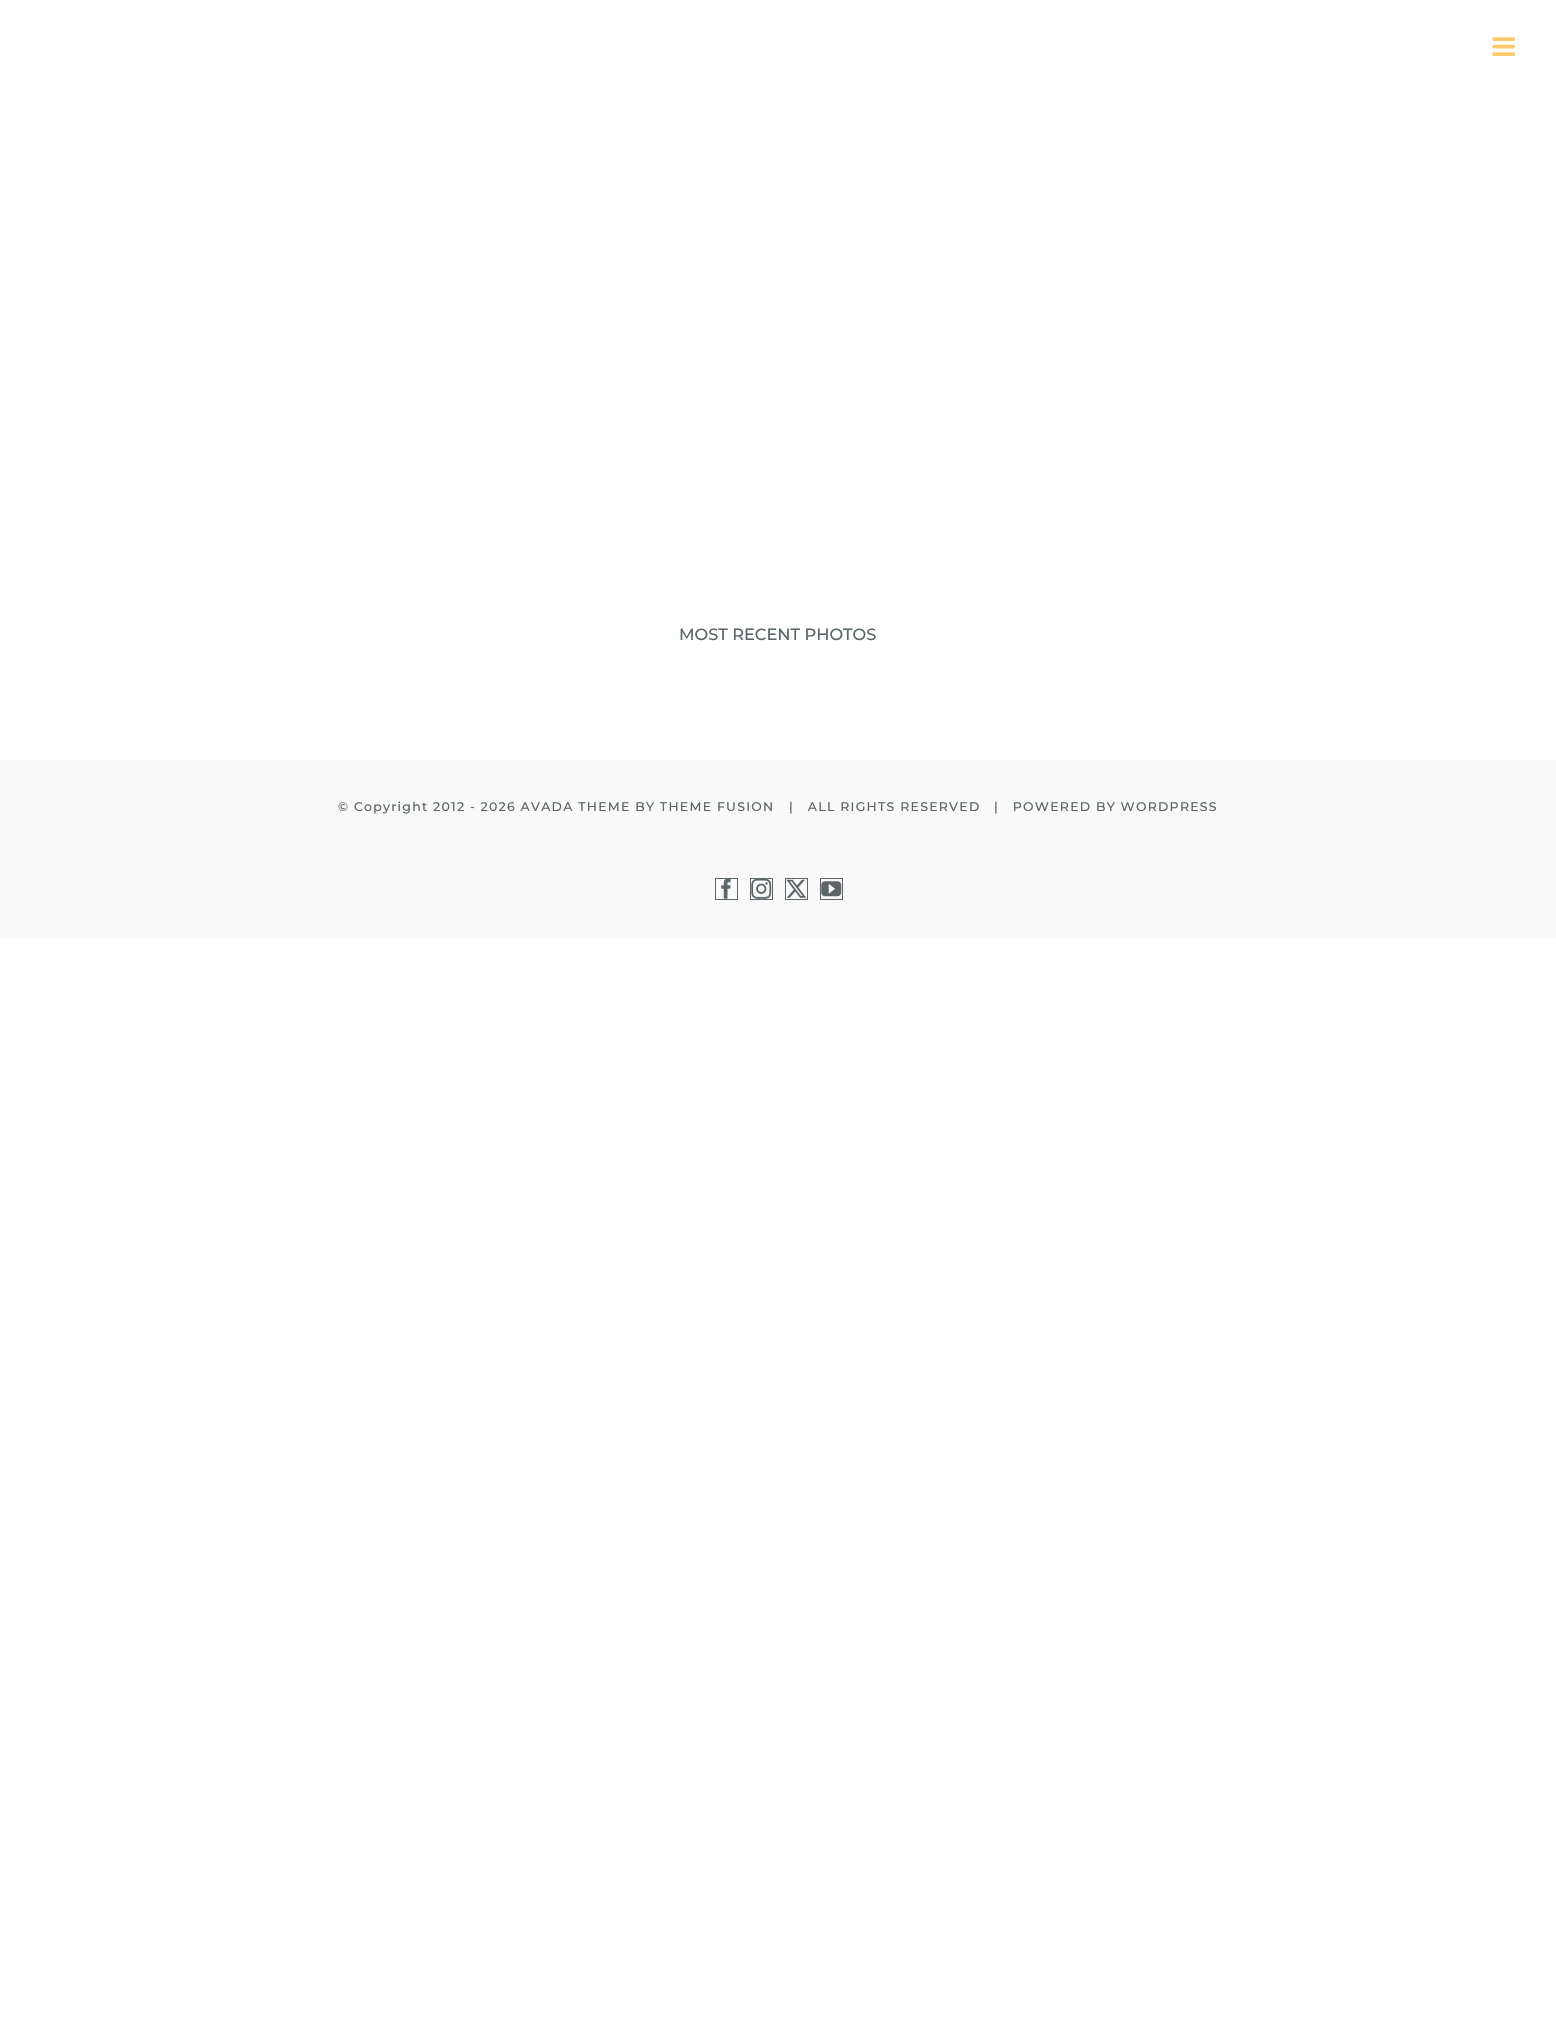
#include "include/core/SkBlurTypes.h"
#include "include/core/SkCanvas.h"
#include "include/core/SkData.h"
#include "include/core/SkFont.h"
#include "include/core/SkFontMgr.h"
#include "include/core/SkImage.h"
#include "include/core/SkMaskFilter.h"
#include "include/core/SkPaint.h"
#include "include/core/SkPathBuilder.h"
#include "include/core/SkTextBlob.h"
#include "include/effects/SkDashPathEffect.h"
#include "include/effects/SkGradientShader.h"
#include "include/utils/SkParsePath.h"

extern sk_sp<SkFontMgr> fontMgr;

void draw(SkCanvas* canvas) {
    SkPaint p;
    p.setAntiAlias(true);
    auto font = [&](const char* family, int weight, float size, bool italic = false) {
        SkFontStyle style(weight, SkFontStyle::kNormal_Width,
            italic ? SkFontStyle::kItalic_Slant : SkFontStyle::kUpright_Slant);
        SkFont result(fontMgr->matchFamilyStyle(family, style), size);
        result.setSubpixel(true);
        return result;
    };
    auto drawTracked = [&](const char* s, float x, float y, const SkFont& font, const SkPaint& ink, float letter, float word) {
        std::vector<SkGlyphID> glyphs(font.countText(s, strlen(s), SkTextEncoding::kUTF8));
        std::vector<float> xs(glyphs.size());
        font.textToGlyphs(s, strlen(s), SkTextEncoding::kUTF8, glyphs);
        font.getXPos(glyphs, xs, x);
        float extra = 0;
        for (size_t i = 0; i < glyphs.size(); i++) {
            xs[i] += extra;
            extra += letter + word * (glyphs[i] == font.unicharToGlyph(' '));
        }
        canvas->drawTextBlob(SkTextBlob::MakeFromPosHGlyphs(glyphs, xs, y, font), 0, 0, ink);
    };
    auto drawPhoto = [&](const char* path, float l, float t, float r, float b) {
        auto image = SkImages::DeferredFromEncodedData(SkData::MakeFromFileName(path));
        canvas->drawImageRect(image, SkRect::MakeLTRB(l, t, r, b), SkSamplingOptions());
    };
    canvas->clear(0xFFFFFFFF);
    drawPhoto("media/1.png", 1492, 37, 1515, 56);
    auto font1 = font("Montserrat", 100, 16.25f);
    p.setColor(0xFF5C6668);
    canvas->drawString("MOST RECENT PHOTOS", 679, 640, font1, p);
    p.setColor(0xFFF9F9F9);
    canvas->drawRect(SkRect::MakeLTRB(0, 760, 1556, 938), p);
    auto font2 = font("Montserrat", 100, 12.5f);
    p.setColor(0xFF5C6668);
    {
        const struct { const char* s; float x, y; } items[] = {
            {"© Copyright 2012 - 2026 AVADA THEME BY THEME FUSION", 338, 811},
            {"|   ALL RIGHTS RESERVED", 789, 811},
            {"|   POWERED BY WORDPRESS", 994, 811},
        };
        for (auto [s, x, y] : items) {
            drawTracked(s, x, y, font2, p, 1.25f, 0);
        }
    }
    p.setStyle(SkPaint::kStroke_Style);
    p.setStrokeWidth(1);
    canvas->drawRect(SkRect::MakeLTRB(715.5f, 878.5f, 737.5f, 899.5f), p);
    drawPhoto("media/2.png", 721, 879, 731, 899);
    canvas->drawRect(SkRect::MakeLTRB(750.5f, 878.5f, 772.5f, 899.5f), p);
    drawPhoto("media/3.png", 751, 879, 772, 899);
    canvas->drawRect(SkRect::MakeLTRB(785.5f, 878.5f, 807.5f, 899.5f), p);
    drawPhoto("media/4.png", 786, 879, 807, 898);
    canvas->drawRect(SkRect::MakeLTRB(820.5f, 878.5f, 842.5f, 899.5f), p);
    drawPhoto("media/5.png", 821, 881, 842, 897);
}
